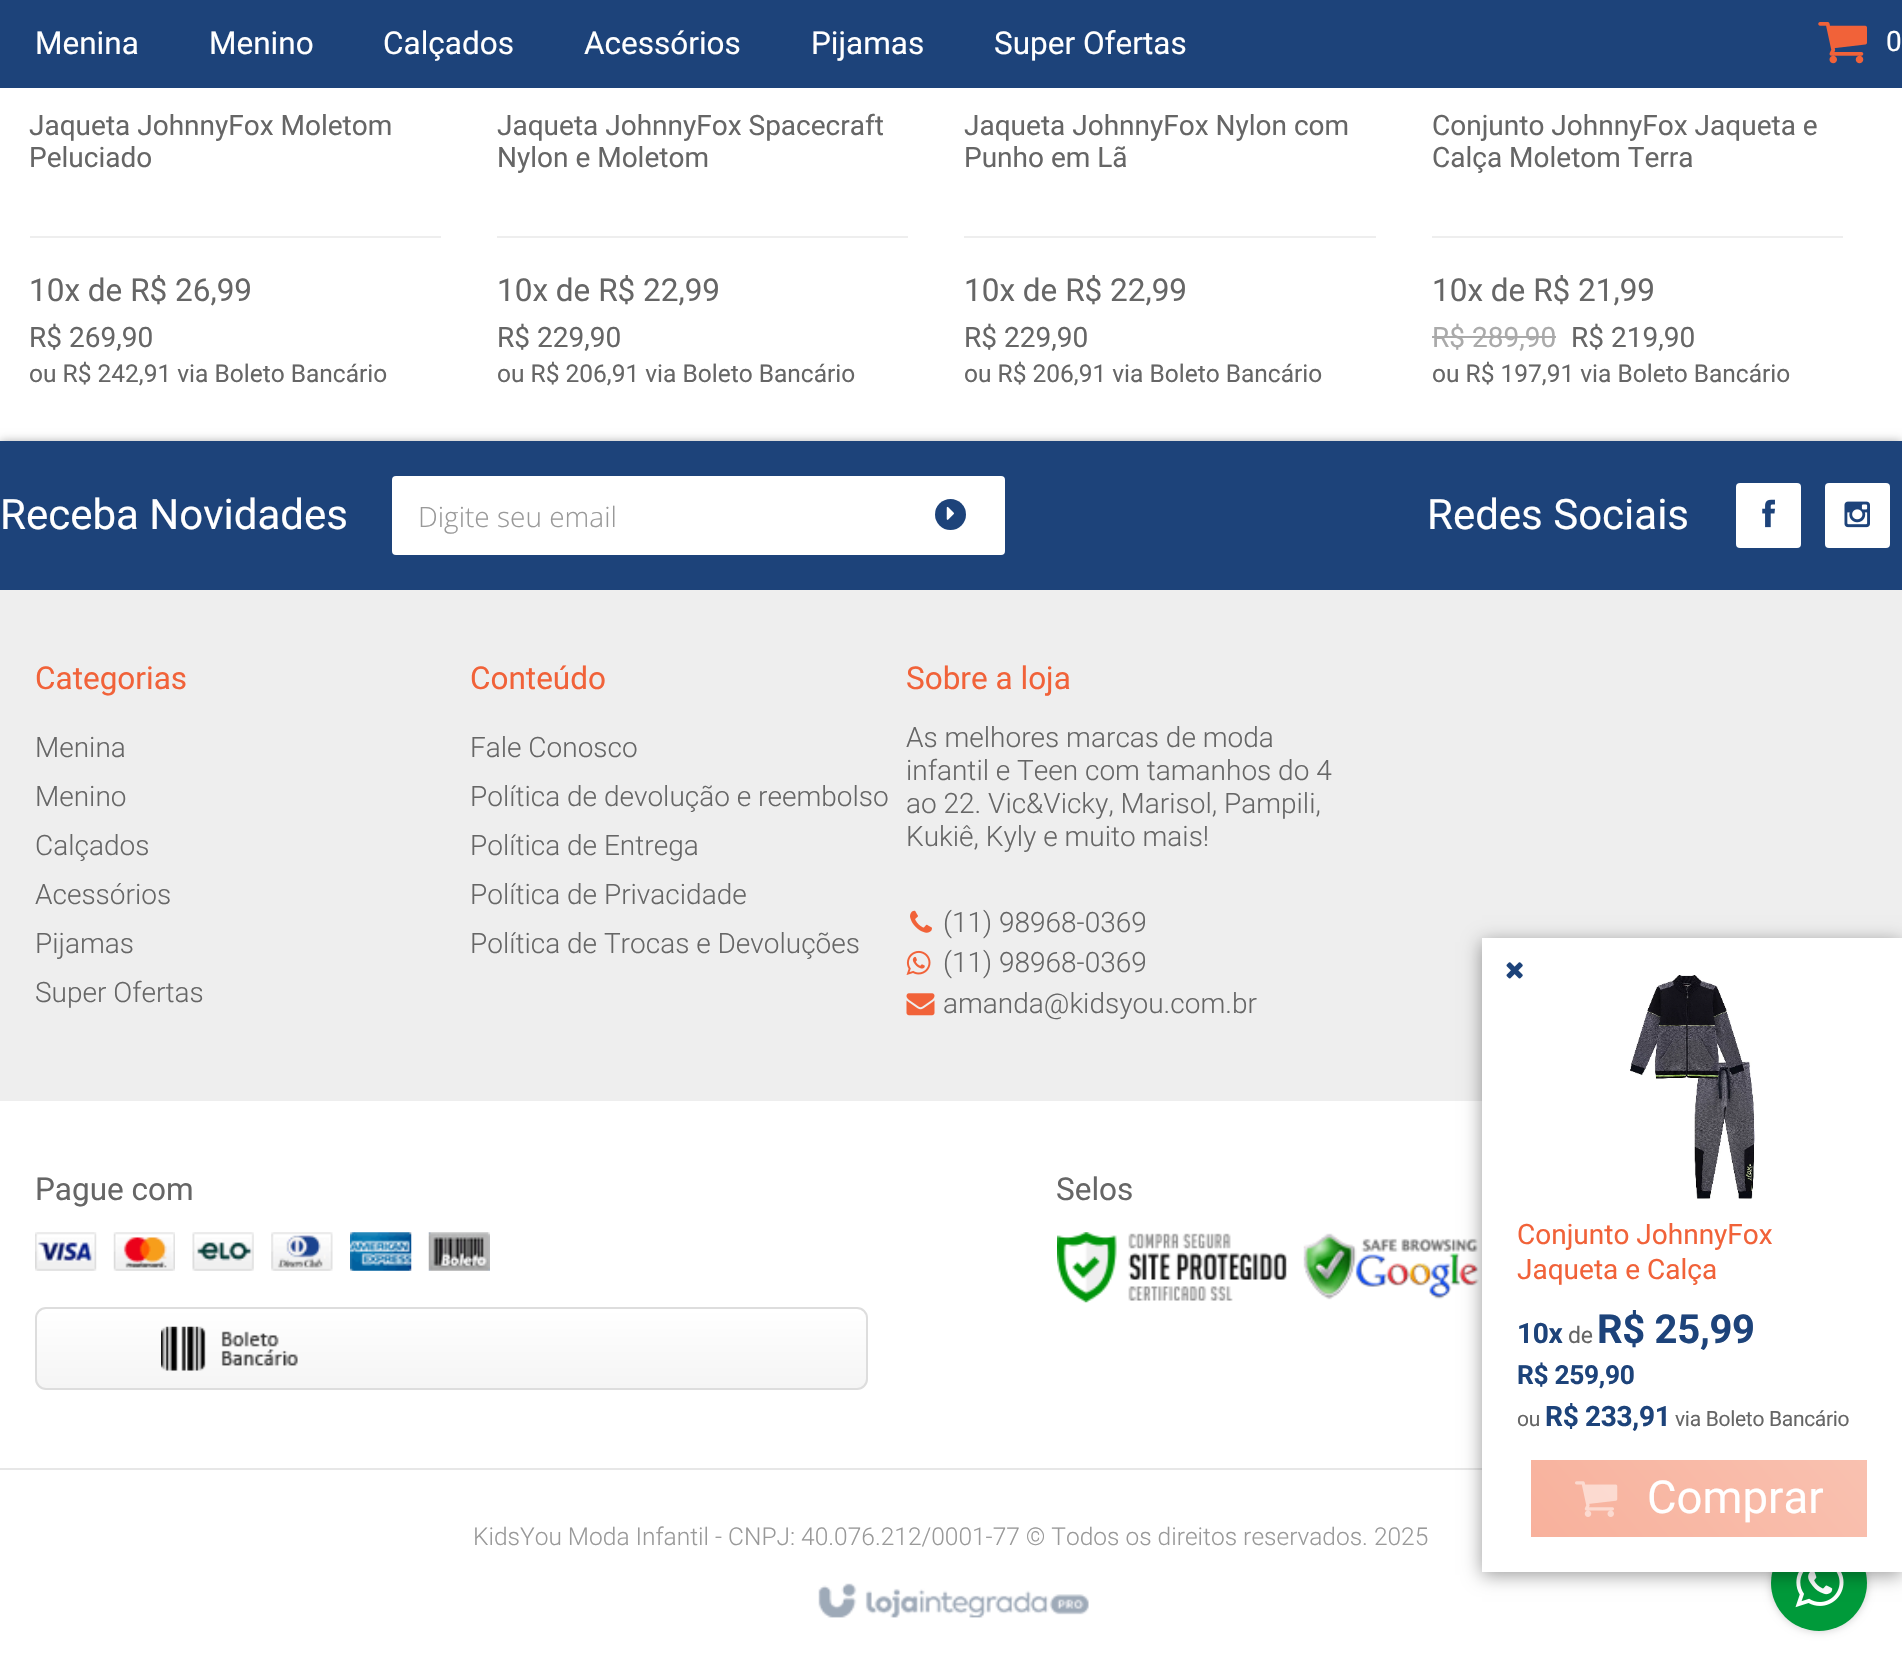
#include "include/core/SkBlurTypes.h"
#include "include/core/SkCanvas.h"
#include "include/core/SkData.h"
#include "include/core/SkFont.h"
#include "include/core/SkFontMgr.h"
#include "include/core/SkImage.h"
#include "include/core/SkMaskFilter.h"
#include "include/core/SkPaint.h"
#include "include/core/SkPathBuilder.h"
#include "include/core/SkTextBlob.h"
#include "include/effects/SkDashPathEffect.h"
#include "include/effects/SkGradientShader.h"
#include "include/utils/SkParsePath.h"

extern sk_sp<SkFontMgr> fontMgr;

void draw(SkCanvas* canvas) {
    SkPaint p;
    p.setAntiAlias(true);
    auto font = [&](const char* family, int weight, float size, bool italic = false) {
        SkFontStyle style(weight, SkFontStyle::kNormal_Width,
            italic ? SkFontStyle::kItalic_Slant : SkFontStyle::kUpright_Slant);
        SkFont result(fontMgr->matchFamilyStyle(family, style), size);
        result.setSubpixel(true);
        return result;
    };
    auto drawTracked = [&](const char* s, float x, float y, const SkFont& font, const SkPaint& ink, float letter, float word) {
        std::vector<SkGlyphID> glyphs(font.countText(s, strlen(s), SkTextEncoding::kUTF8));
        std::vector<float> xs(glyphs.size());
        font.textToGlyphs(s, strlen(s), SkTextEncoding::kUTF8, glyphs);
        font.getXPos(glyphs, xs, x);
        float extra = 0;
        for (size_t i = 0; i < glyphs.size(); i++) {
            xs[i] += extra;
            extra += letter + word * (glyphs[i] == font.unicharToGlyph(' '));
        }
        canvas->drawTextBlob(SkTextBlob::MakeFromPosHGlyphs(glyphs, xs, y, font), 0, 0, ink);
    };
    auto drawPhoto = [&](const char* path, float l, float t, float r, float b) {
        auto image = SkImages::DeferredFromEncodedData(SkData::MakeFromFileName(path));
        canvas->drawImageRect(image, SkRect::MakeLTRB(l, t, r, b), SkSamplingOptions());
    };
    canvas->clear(0xFFFFFFFF);
    p.setColor(0xFF1D437A);
    canvas->drawRect(SkRect::MakeLTRB(0, 0, 1902, 88), p);
    auto font1 = font("Roboto", 400, 31.5f);
    p.setColor(0xFFFFFFFF);
    {
        const struct { const char* s; float x, y; } items[] = {
            {"Menina", 35, 54},
            {"Menino", 209, 54},
            {"Calçados", 383, 54},
            {"Acessórios", 584, 54},
            {"Pijamas", 811, 54},
            {"Super Ofertas", 994, 54},
        };
        for (auto [s, x, y] : items) {
            canvas->drawString(s, x, y, font1, p);
        }
    }
    drawPhoto("media/1.png", 1818, 22, 1867, 64);
    auto font2 = font("Roboto", 400, 28);
    canvas->drawString("0", 1886, 51, font2, p);
    p.setColor(0xFFEEEEEE);
    canvas->drawRect(SkRect::MakeLTRB(30, 236, 441, 238), p);
    p.setColor(0xFF666666);
    canvas->drawString("Jaqueta JohnnyFox Moletom", 29, 135, font2, p);
    canvas->drawString("Peluciado", 29, 167, font2, p);
    canvas->drawString("10x de R$ 26,99", 29, 301, font1, p);
    canvas->drawString("R$ 269,90", 29, 347, font2, p);
    auto font3 = font("Roboto", 400, 24.5f);
    canvas->drawString("ou R$ 242,91 via Boleto Bancário", 29, 382, font3, p);
    p.setColor(0xFFEEEEEE);
    canvas->drawRect(SkRect::MakeLTRB(497, 236, 908, 238), p);
    p.setColor(0xFF666666);
    canvas->drawString("Jaqueta JohnnyFox Spacecraft", 497, 135, font2, p);
    canvas->drawString("Nylon e Moletom", 497, 167, font2, p);
    canvas->drawString("10x de R$ 22,99", 497, 301, font1, p);
    canvas->drawString("R$ 229,90", 497, 347, font2, p);
    canvas->drawString("ou R$ 206,91 via Boleto Bancário", 497, 382, font3, p);
    p.setColor(0xFFEEEEEE);
    canvas->drawRect(SkRect::MakeLTRB(964, 236, 1376, 238), p);
    p.setColor(0xFF666666);
    canvas->drawString("Jaqueta JohnnyFox Nylon com", 964, 135, font2, p);
    canvas->drawString("Punho em Lã", 964, 167, font2, p);
    canvas->drawString("10x de R$ 22,99", 964, 301, font1, p);
    canvas->drawString("R$ 229,90", 964, 347, font2, p);
    canvas->drawString("ou R$ 206,91 via Boleto Bancário", 964, 382, font3, p);
    p.setColor(0xFFEEEEEE);
    canvas->drawRect(SkRect::MakeLTRB(1432, 236, 1843, 238), p);
    p.setColor(0xFF666666);
    canvas->drawString("Conjunto JohnnyFox Jaqueta e", 1432, 135, font2, p);
    canvas->drawString("Calça Moletom Terra", 1432, 167, font2, p);
    canvas->drawString("10x de R$ 21,99", 1432, 301, font1, p);
    p.setColor(0xFFAAAAAA);
    canvas->drawString("R$ 289,90", 1432, 347, font2, p);
    canvas->drawRect(SkRect::MakeLTRB(1432, 336, 1556, 338), p);
    p.setColor(0xFF666666);
    canvas->drawString("R$ 219,90", 1571, 347, font2, p);
    canvas->drawString("ou R$ 197,91 via Boleto Bancário", 1432, 382, font3, p);
    p.setColor(0x4D000000);
    p.setMaskFilter(SkMaskFilter::MakeBlur(kNormal_SkBlurStyle, 4.5f));
    canvas->drawRect(SkRect::MakeLTRB(0, 441, 1902, 590), p);
    p.setMaskFilter(nullptr);
    p.setColor(0xFFEEEEEE);
    canvas->drawRect(SkRect::MakeLTRB(0, 590, 1902, 1101), p);
    drawPhoto("media/19.png", 1303, 1233, 1479, 1300);
    p.setColor(0xFFE7E7E7);
    canvas->drawRect(SkRect::MakeLTRB(0, 1468, 1482, 1470), p);
    p.setColor(0x33000000);
    p.setMaskFilter(SkMaskFilter::MakeBlur(kNormal_SkBlurStyle, 4.5f));
    canvas->drawRoundRect(SkRect::MakeLTRB(1771, 1535, 1867, 1631), 48, 48, p);
    p.setMaskFilter(nullptr);
    p.setColor(0xFF009A3A);
    canvas->drawCircle(1819, 1583, 48, p);
    drawPhoto("media/21.png", 1795, 1572, 1844, 1608);
    p.setColor(0x66000000);
    p.setMaskFilter(SkMaskFilter::MakeBlur(kNormal_SkBlurStyle, 9));
    canvas->drawRect(SkRect::MakeLTRB(1482, 942, 1902, 1575), p);
    p.setMaskFilter(nullptr);
    p.setColor(0xFFFFFFFF);
    canvas->drawRect(SkRect::MakeLTRB(1482, 938, 1902, 1572), p);
    drawPhoto("media/2.png", 1506, 962, 1523, 979);
    drawPhoto("media/3.png", 1630, 975, 1756, 1199);
    p.setColor(0xFFF16239);
    canvas->drawString("Conjunto JohnnyFox", 1517, 1244, font2, p);
    canvas->drawString("Jaqueta e Calça", 1517, 1279, font2, p);
    auto font4 = font("Roboto", 700, 28);
    p.setColor(0xFF1D437A);
    drawTracked("10x", 1517, 1343, font4, p, -0.3f, 0);
    auto font5 = font("Roboto", 400, 23);
    p.setColor(0xFF666666);
    drawTracked("de", 1568, 1343, font5, p, -0.3f, 0);
    auto font6 = font("Roboto", 700, 40);
    p.setColor(0xFF1D437A);
    drawTracked("R$ 25,99", 1597, 1343, font6, p, -0.3f, 0);
    auto font7 = font("Roboto", 700, 26.25f);
    drawTracked("R$ 259,90", 1517, 1384, font7, p, -0.3f, 0);
    auto font8 = font("Roboto", 400, 21);
    p.setColor(0xFF666666);
    drawTracked("ou", 1517, 1426, font8, p, -0.3f, 0);
    p.setColor(0xFF1D437A);
    drawTracked("R$ 233,91", 1545, 1426, font4, p, -0.3f, 0);
    p.setColor(0xFF666666);
    drawTracked("via Boleto Bancário", 1675, 1426, font8, p, -0.3f, 0);
    {
        const SkColor colors[] = {0xFFF9C1B0, 0xFFF8B19C};
        const float stops[] = {0, 1};
        const SkPoint ends[] = {{1817, 1399}, {1582, 1597}};
        p.setShader(SkGradientShader::MakeLinear(ends, colors, stops, 2, SkTileMode::kClamp));
        p.setAlpha(255);
    }
    canvas->drawRect(SkRect::MakeLTRB(1531, 1460, 1867, 1537), p);
    drawPhoto("media/4.png", 1575, 1481, 1618, 1517);
    auto font9 = font("Roboto", 400, 45.5f);
    p.setShader(nullptr);
    p.setColor(0xFFFFFFFF);
    canvas->drawString("Comprar", 1647, 1513, font9, p);
    p.setColor(0xFF1D437A);
    canvas->drawRect(SkRect::MakeLTRB(0, 441, 1902, 590), p);
    auto font10 = font("Roboto", 400, 42);
    p.setColor(0xFFFFFFFF);
    canvas->drawString("Receba Novidades", 0, 529, font10, p);
    canvas->drawRoundRect(SkRect::MakeLTRB(392, 476, 1005, 555), 4, 4, p);
    auto font11 = font("Open Sans", 300, 28);
    p.setColor(0xFF999999);
    canvas->drawString("Digite seu email", 418, 527, font11, p);
    p.setColor(0xFF1D437A);
    canvas->drawCircle(950.5f, 514.5f, 15.5f, p);
    drawPhoto("media/5.png", 946, 506, 954, 520);
    p.setColor(0xFFFFFFFF);
    canvas->drawString("Redes Sociais", 1427, 529, font10, p);
    canvas->drawRoundRect(SkRect::MakeLTRB(1736, 483, 1801, 548), 4, 4, p);
    drawPhoto("media/6.png", 1762, 499, 1775, 528);
    canvas->drawRoundRect(SkRect::MakeLTRB(1825, 483, 1890, 548), 4, 4, p);
    drawPhoto("media/7.png", 1844, 501, 1870, 528);
    p.setColor(0xFFF16239);
    canvas->drawString("Categorias", 35, 689, font1, p);
    auto font12 = font("Roboto", 300, 28);
    p.setColor(0xFF666666);
    {
        const struct { const char* s; float x, y; } items[] = {
            {"Menina", 35, 757},
            {"Menino", 35, 806},
            {"Calçados", 35, 855},
            {"Acessórios", 35, 904},
            {"Pijamas", 35, 953},
            {"Super Ofertas", 35, 1002},
        };
        for (auto [s, x, y] : items) {
            canvas->drawString(s, x, y, font12, p);
        }
    }
    p.setColor(0xFFF16239);
    canvas->drawString("Conteúdo", 470, 689, font1, p);
    p.setColor(0xFF666666);
    {
        const struct { const char* s; float x, y; } items[] = {
            {"Fale Conosco", 470, 757},
            {"Política de devolução e reembolso", 470, 806},
            {"Política de Entrega", 470, 855},
            {"Política de Privacidade", 470, 904},
            {"Política de Trocas e Devoluções", 470, 953},
        };
        for (auto [s, x, y] : items) {
            canvas->drawString(s, x, y, font12, p);
        }
    }
    p.setColor(0xFFF16239);
    canvas->drawString("Sobre a loja", 906, 689, font1, p);
    p.setColor(0xFF666666);
    {
        const struct { const char* s; float x, y; } items[] = {
            {"As melhores marcas de moda", 906, 747},
            {"infantil e Teen com tamanhos do 4", 906, 780},
            {"ao 22. Vic&Vicky, Marisol, Pampili,", 906, 813},
            {"Kukiê, Kyly e muito mais!", 906, 846},
        };
        for (auto [s, x, y] : items) {
            canvas->drawString(s, x, y, font12, p);
        }
    }
    drawPhoto("media/8.png", 910, 910, 932, 933);
    canvas->drawString("(11) 98968-0369", 943, 932, font12, p);
    drawPhoto("media/9.png", 906, 950, 931, 975);
    canvas->drawString("(11) 98968-0369", 943, 972, font12, p);
    drawPhoto("media/10.png", 906, 993, 935, 1016);
    canvas->drawString("amanda@kidsyou.com.br", 943, 1013, font12, p);
    canvas->drawString("Pague com", 35, 1200, font1, p);
    drawPhoto("media/11.png", 35, 1232, 97, 1271);
    drawPhoto("media/12.png", 113, 1232, 175, 1271);
    drawPhoto("media/13.png", 192, 1232, 254, 1271);
    drawPhoto("media/14.png", 271, 1232, 333, 1271);
    drawPhoto("media/15.png", 350, 1232, 412, 1271);
    drawPhoto("media/16.png", 428, 1232, 490, 1271);
    canvas->save();
    canvas->clipPath(SkPathBuilder().moveTo(46, 1307).lineTo(857, 1307).cubicTo(863, 1307, 868, 1312, 868, 1318).lineTo(868, 1379).cubicTo(868, 1385, 863, 1390, 857, 1390).lineTo(46, 1390).cubicTo(40, 1390, 35, 1385, 35, 1379).lineTo(35, 1318).cubicTo(35, 1312, 40, 1307, 46, 1307).close().detach(), true);
    {
        const SkColor colors[] = {0xFFFFFFFF, 0xFFF5F5F5};
        const float stops[] = {0, 1};
        const SkPoint ends[] = {{452, 1309}, {452, 1388}};
        p.setShader(SkGradientShader::MakeLinear(ends, colors, stops, 2, SkTileMode::kClamp));
        p.setAlpha(255);
    }
    canvas->drawRect(SkRect::MakeLTRB(35, 1309, 868, 1388), p);
    canvas->restore();
    p.setStyle(SkPaint::kStroke_Style);
    p.setStrokeWidth(2);
    p.setShader(nullptr);
    p.setColor(0xFFDDDDDD);
    canvas->drawRoundRect(SkRect::MakeLTRB(36, 1308, 867, 1389), 10, 10, p);
    drawPhoto("media/17.png", 161, 1326, 298, 1371);
    p.setStyle(SkPaint::kFill_Style);
    p.setColor(0xFF666666);
    canvas->drawString("Selos", 1056, 1200, font1, p);
    drawPhoto("media/18.png", 1057, 1232, 1287, 1303);
    auto font13 = font("Roboto", 300, 24.5f);
    p.setColor(0xFF999999);
    canvas->drawString("KidsYou Moda Infantil - CNPJ: 40.076.212/0001-77 © Todos os direitos reservados. 2025", 473, 1545, font13, p);
    drawPhoto("media/20.png", 818, 1583, 1089, 1618);
}
